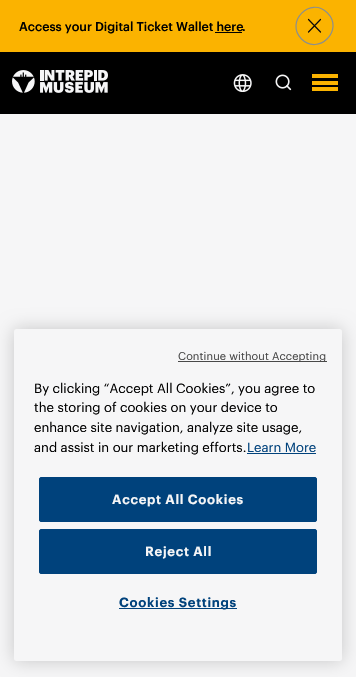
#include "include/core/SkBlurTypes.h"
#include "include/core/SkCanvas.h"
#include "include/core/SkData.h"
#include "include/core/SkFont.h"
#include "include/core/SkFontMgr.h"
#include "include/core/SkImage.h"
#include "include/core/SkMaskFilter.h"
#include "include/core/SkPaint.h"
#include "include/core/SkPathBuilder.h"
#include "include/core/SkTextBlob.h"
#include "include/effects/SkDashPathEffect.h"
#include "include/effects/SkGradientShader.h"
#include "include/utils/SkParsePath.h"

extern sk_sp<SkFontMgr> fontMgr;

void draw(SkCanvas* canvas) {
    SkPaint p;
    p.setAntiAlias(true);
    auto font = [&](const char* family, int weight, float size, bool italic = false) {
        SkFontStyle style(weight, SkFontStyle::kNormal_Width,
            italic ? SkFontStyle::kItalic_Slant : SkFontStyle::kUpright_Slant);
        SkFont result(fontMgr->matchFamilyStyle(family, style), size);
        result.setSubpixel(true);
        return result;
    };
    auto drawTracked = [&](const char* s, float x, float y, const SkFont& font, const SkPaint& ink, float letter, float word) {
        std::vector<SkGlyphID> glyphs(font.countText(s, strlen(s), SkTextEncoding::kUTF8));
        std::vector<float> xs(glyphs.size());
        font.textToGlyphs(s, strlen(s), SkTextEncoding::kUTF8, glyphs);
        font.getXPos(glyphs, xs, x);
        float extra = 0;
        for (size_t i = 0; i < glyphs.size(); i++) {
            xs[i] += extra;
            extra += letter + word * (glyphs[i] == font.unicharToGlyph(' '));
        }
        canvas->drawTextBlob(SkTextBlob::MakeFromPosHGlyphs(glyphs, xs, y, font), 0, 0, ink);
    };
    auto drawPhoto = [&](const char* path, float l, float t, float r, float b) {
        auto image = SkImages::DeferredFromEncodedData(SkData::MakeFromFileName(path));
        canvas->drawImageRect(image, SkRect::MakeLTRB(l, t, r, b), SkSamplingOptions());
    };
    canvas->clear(0xFFF6F6F7);
    p.setColor(0xFFFBB300);
    canvas->drawRect(SkRect::MakeLTRB(0, 0, 356, 52), p);
    auto font1 = font("Graphik", 500, 12.5f);
    p.setColor(0xFF000000);
    canvas->drawString("Access your Digital Ticket Wallet here", 19, 31, font1, p);
    canvas->drawString(".", 242, 31, font1, p);
    canvas->drawRect(SkRect::MakeLTRB(215, 32, 242, 33), p);
    p.setStyle(SkPaint::kStroke_Style);
    p.setStrokeWidth(1.2f);
    p.setColor(0xFF8C8F8C);
    canvas->drawPath(SkPathBuilder().moveTo(327.5f, 13).cubicTo(344.5f, 30, 318.5f, 56, 301.5f, 39).cubicTo(284.5f, 22, 310.5f, -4.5f, 327.5f, 13).close().detach(), p);
    p.setStrokeCap(SkPaint::kRound_Cap);
    p.setStrokeJoin(SkPaint::kRound_Join);
    p.setColor(0xFF090908);
    canvas->drawPath(SkPathBuilder().moveTo(320.5f, 19.5f).lineTo(308.5f, 32).moveTo(308.5f, 19.5f).lineTo(320.5f, 32).detach(), p);
    p.setStyle(SkPaint::kFill_Style);
    p.setColor(0xFF000000);
    canvas->drawRect(SkRect::MakeLTRB(0, 52, 356, 114), p);
    drawPhoto("media/1.png", 12, 70, 35, 93);
    drawPhoto("media/2.png", 40, 70, 108, 93);
    drawPhoto("media/3.png", 233, 74, 252, 92);
    drawPhoto("media/4.png", 275, 74, 292, 91);
    {
        const struct { float l, t, r, b; SkColor color; } items[] = {
            {312, 74, 338, 78, 0xFFFBB300},
            {312, 81, 338, 85, 0xFFFBB300},
            {312, 87, 338, 91, 0xFFFBB300},
        };
        for (auto [l, t, r, b, color] : items) {
            p.setColor(color);
            canvas->drawRect(SkRect::MakeLTRB(l, t, r, b), p);
        }
    }
    p.setColor(0x33000000);
    p.setMaskFilter(SkMaskFilter::MakeBlur(kNormal_SkBlurStyle, 9));
    canvas->drawRoundRect(SkRect::MakeLTRB(14, 329, 342, 661), 2.5f, 2.5f, p);
    p.setMaskFilter(nullptr);
    p.setColor(0xFFF6F6F7);
    canvas->drawRoundRect(SkRect::MakeLTRB(14, 329, 342, 661), 2.5f, 2.5f, p);
    p.setColor(0xFF494949);
    canvas->drawRect(SkRect::MakeLTRB(178, 361, 327, 362), p);
    auto font2 = font("Graphik", 400, 11);
    drawTracked("Continue without Accepting", 178, 360, font2, p, 0.1f, 0);
    auto font3 = font("Graphik", 400, 13.1f);
    p.setColor(0xFF000000);
    {
        const struct { const char* s; float x, y; } items[] = {
            {"By clicking “Accept All Cookies”, you agree to", 34, 393},
            {"the storing of cookies on your device to", 34, 412},
            {"enhance site navigation, analyze site usage,", 34, 432},
            {"and assist in our marketing efforts.", 34, 452},
        };
        for (auto [s, x, y] : items) {
            canvas->drawString(s, x, y, font3, p);
        }
    }
    p.setColor(0xFF00427C);
    canvas->drawString("Learn More", 247, 452, font3, p);
    canvas->drawRect(SkRect::MakeLTRB(247, 453, 316, 454), p);
    canvas->drawRoundRect(SkRect::MakeLTRB(39.5f, 477.5f, 316.5f, 521.5f), 1.5f, 1.5f, p);
    p.setStyle(SkPaint::kStroke_Style);
    p.setStrokeWidth(1);
    p.setStrokeCap(SkPaint::kButt_Cap);
    p.setStrokeJoin(SkPaint::kMiter_Join);
    canvas->drawRoundRect(SkRect::MakeLTRB(39.5f, 477.5f, 316.5f, 521.5f), 1.5f, 1.5f, p);
    auto font4 = font("Graphik", 600, 13.1f);
    p.setStyle(SkPaint::kFill_Style);
    p.setColor(0xFFF6F6F7);
    drawTracked("Accept All Cookies", 112, 504, font4, p, 0.7f, 0);
    p.setColor(0xFF00427C);
    canvas->drawRoundRect(SkRect::MakeLTRB(39.5f, 529.5f, 316.5f, 573.5f), 1.5f, 1.5f, p);
    p.setStyle(SkPaint::kStroke_Style);
    canvas->drawRoundRect(SkRect::MakeLTRB(39.5f, 529.5f, 316.5f, 573.5f), 1.5f, 1.5f, p);
    p.setStyle(SkPaint::kFill_Style);
    p.setColor(0xFFF6F6F7);
    drawTracked("Reject All", 145, 556, font4, p, 0.7f, 0);
    p.setColor(0xFF00427C);
    canvas->drawRect(SkRect::MakeLTRB(119, 608, 237, 609), p);
    drawTracked("Cookies Settings", 119, 607, font4, p, 0.7f, 0);
}
